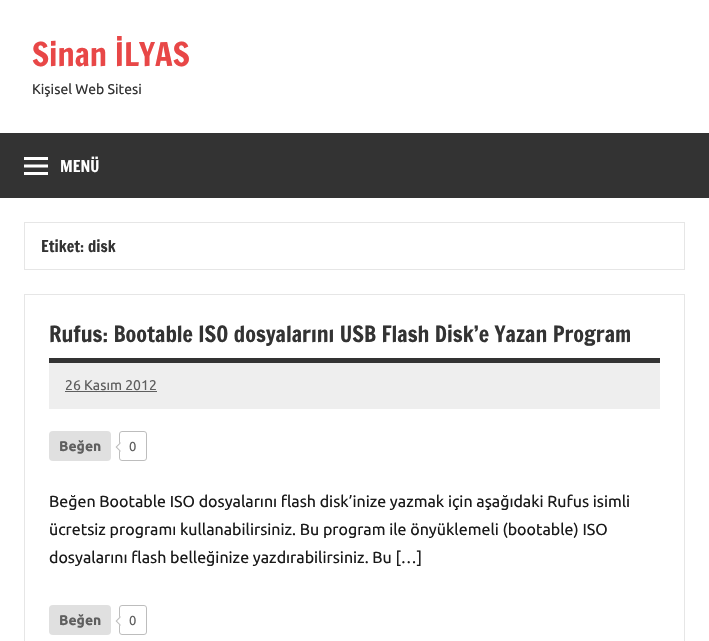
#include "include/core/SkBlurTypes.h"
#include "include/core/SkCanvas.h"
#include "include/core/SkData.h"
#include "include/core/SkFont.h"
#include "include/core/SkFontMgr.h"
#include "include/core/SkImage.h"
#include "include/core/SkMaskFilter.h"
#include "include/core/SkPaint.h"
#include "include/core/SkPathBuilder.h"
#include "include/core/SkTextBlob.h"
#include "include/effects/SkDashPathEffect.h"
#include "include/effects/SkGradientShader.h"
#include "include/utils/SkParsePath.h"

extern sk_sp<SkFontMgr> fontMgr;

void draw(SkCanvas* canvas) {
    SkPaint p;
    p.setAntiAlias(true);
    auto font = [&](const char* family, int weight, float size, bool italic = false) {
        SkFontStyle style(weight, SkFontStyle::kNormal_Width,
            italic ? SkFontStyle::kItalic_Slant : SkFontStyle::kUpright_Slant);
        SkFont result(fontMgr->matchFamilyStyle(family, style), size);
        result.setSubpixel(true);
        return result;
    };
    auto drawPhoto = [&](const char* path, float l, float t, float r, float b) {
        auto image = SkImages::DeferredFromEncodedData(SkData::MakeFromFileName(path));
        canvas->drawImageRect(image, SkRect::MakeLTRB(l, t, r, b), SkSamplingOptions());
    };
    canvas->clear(0xFFFFFFFF);
    auto font1 = font("Francois One", 400, 32);
    p.setColor(0xFFE84747);
    canvas->drawString("Sinan İLYAS", 32, 66, font1, p);
    auto font2 = font("Ubuntu", 400, 14);
    p.setColor(0xFF333333);
    canvas->drawString("Kişisel Web Sitesi", 32, 94, font2, p);
    canvas->drawRect(SkRect::MakeLTRB(0, 133, 709, 198), p);
    drawPhoto("media/1.png", 24, 157, 48, 175);
    auto font3 = font("Francois One", 400, 16);
    p.setColor(0xFFFFFFFF);
    canvas->drawString("MENÜ", 60, 172, font3, p);
    p.setStyle(SkPaint::kStroke_Style);
    p.setStrokeWidth(1);
    p.setColor(0xFFE6E6E6);
    canvas->drawRect(SkRect::MakeLTRB(24.5f, 222.5f, 684.5f, 269.5f), p);
    p.setStyle(SkPaint::kFill_Style);
    p.setColor(0xFF333333);
    canvas->drawString("Etiket: disk", 41, 252, font3, p);
    p.setStyle(SkPaint::kStroke_Style);
    p.setColor(0xFFE6E6E6);
    canvas->drawRect(SkRect::MakeLTRB(24.5f, 294.5f, 684.5f, 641.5f), p);
    p.setStyle(SkPaint::kFill_Style);
    p.setColor(0xFF333333);
    canvas->drawRect(SkRect::MakeLTRB(49, 358, 660, 363), p);
    auto font4 = font("Francois One", 400, 22);
    canvas->drawString("Rufus: Bootable ISO dosyalarını USB Flash Disk’e Yazan Program", 49, 342, font4, p);
    p.setColor(0xFFEEEEEE);
    canvas->drawRect(SkRect::MakeLTRB(49, 363, 660, 409), p);
    p.setColor(0xFF5F5F5F);
    canvas->drawString("26 Kasım 2012", 65, 390, font2, p);
    canvas->drawRect(SkRect::MakeLTRB(65, 391, 157, 392), p);
    p.setColor(0xFFE0E0E0);
    canvas->drawRoundRect(SkRect::MakeLTRB(49, 431, 111, 461), 4, 4, p);
    auto font5 = font("Ubuntu", 700, 14);
    p.setColor(0xFF5F5F5F);
    canvas->drawString("Beğen", 59, 451, font5, p);
    p.setStyle(SkPaint::kStroke_Style);
    p.setColor(0xFFBDBDBD);
    canvas->drawRoundRect(SkRect::MakeLTRB(119.5f, 431.5f, 146.5f, 460.5f), 2.5f, 2.5f, p);
    p.setStyle(SkPaint::kFill_Style);
    p.setColor(0xFFFFFFFF);
    canvas->drawPath(SkPathBuilder().moveTo(120.5f, 442).lineTo(125.5f, 447).lineTo(120.5f, 452).lineTo(115.5f, 447).close().detach(), p);
    p.setColor(0xFFBDBDBD);
    canvas->drawPath(SkPathBuilder().moveTo(120.5f, 452).lineTo(115.5f, 447).lineTo(117, 447).lineTo(120.5f, 450.5f).close().moveTo(115.5f, 447).lineTo(120.5f, 442).lineTo(120.5f, 443.5f).lineTo(117, 447).close().detach(), p);
    auto font6 = font("Ubuntu", 400, 13);
    p.setColor(0xFF5F5F5F);
    canvas->drawString("0", 129, 451, font6, p);
    auto font7 = font("Ubuntu", 400, 16);
    p.setColor(0xFF1A1A1A);
    {
        const struct { const char* s; float x, y; } items[] = {
            {"Beğen Bootable ISO dosyalarını flash disk’inize yazmak için aşağıdaki Rufus isimli", 49, 507},
            {"ücretsiz programı kullanabilirsiniz. Bu program ile önyüklemeli (bootable) ISO", 49, 535},
            {"dosyalarını flash belleğinize yazdırabilirsiniz. Bu […]", 49, 563},
        };
        for (auto [s, x, y] : items) {
            canvas->drawString(s, x, y, font7, p);
        }
    }
    p.setColor(0xFFE0E0E0);
    canvas->drawRoundRect(SkRect::MakeLTRB(49, 605, 111, 635), 4, 4, p);
    p.setColor(0xFF5F5F5F);
    canvas->drawString("Beğen", 59, 625, font5, p);
    p.setStyle(SkPaint::kStroke_Style);
    p.setColor(0xFFBDBDBD);
    canvas->drawRoundRect(SkRect::MakeLTRB(119.5f, 605.5f, 146.5f, 634.5f), 2.5f, 2.5f, p);
    p.setStyle(SkPaint::kFill_Style);
    p.setColor(0xFFFFFFFF);
    canvas->drawPath(SkPathBuilder().moveTo(120.5f, 616).lineTo(125.5f, 621).lineTo(120.5f, 626).lineTo(115.5f, 621).close().detach(), p);
    p.setColor(0xFFBDBDBD);
    canvas->drawPath(SkPathBuilder().moveTo(120.5f, 626).lineTo(115.5f, 621).lineTo(117, 621).lineTo(120.5f, 624.5f).close().moveTo(115.5f, 621).lineTo(120.5f, 616).lineTo(120.5f, 617.5f).lineTo(117, 621).close().detach(), p);
    p.setColor(0xFF5F5F5F);
    canvas->drawString("0", 129, 625, font6, p);
}
